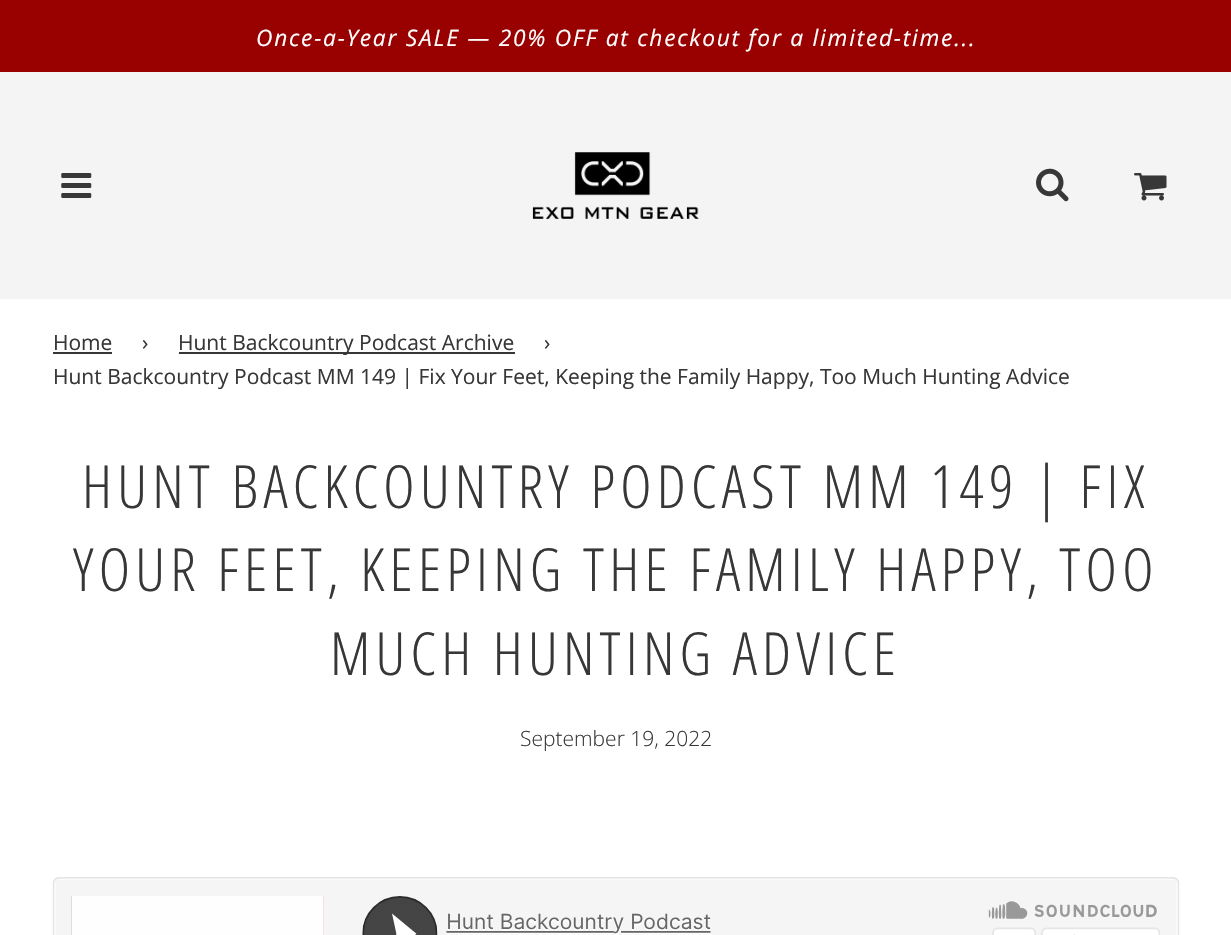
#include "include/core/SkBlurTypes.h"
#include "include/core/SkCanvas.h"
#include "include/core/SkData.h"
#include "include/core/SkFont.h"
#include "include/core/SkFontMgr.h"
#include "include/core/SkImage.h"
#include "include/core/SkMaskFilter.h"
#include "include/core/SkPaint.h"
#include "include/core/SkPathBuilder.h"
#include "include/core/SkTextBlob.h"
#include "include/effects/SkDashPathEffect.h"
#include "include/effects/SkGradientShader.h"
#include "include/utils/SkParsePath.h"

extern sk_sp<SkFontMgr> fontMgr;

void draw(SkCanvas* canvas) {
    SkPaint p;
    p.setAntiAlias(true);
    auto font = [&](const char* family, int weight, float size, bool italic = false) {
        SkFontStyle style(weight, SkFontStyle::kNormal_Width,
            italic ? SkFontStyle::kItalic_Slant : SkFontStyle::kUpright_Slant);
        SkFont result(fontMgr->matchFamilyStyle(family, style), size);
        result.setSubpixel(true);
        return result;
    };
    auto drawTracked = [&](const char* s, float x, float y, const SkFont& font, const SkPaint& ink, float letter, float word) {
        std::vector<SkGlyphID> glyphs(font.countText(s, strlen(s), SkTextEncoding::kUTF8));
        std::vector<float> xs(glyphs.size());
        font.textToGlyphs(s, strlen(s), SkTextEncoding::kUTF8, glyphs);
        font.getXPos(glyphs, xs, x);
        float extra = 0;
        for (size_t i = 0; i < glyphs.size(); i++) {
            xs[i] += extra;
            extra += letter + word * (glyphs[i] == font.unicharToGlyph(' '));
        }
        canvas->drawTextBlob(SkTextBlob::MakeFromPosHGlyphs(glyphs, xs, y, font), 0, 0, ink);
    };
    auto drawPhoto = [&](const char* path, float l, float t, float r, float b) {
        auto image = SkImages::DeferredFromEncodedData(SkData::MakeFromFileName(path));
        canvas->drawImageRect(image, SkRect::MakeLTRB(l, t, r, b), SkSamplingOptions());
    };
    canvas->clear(0xFFFFFFFF);
    p.setColor(0xFF990000);
    canvas->drawRect(SkRect::MakeLTRB(0, 0, 1231, 72), p);
    auto font1 = font("Open Sans", 400, 22.75f, true);
    p.setColor(0xFFFFFFFF);
    drawTracked("Once-a-Year SALE — 20% OFF at checkout for a limited-time...", 256, 46, font1, p, 1.75f, 0);
    p.setColor(0xFFF4F4F4);
    canvas->drawRect(SkRect::MakeLTRB(0, 72, 1231, 299), p);
    drawPhoto("media/1.png", 61, 173, 92, 198);
    drawPhoto("media/2.png", 532, 152, 699, 219);
    drawPhoto("media/3.png", 1036, 168, 1069, 202);
    drawPhoto("media/4.png", 1134, 173, 1167, 201);
    auto font2 = font("Open Sans", 400, 21);
    p.setColor(0xFF373737);
    canvas->drawString("Home", 53, 350, font2, p);
    canvas->drawRect(SkRect::MakeLTRB(53, 352, 112, 354), p);
    canvas->drawString("›", 142, 350, font2, p);
    canvas->drawRect(SkRect::MakeLTRB(179, 352, 515, 354), p);
    {
        const struct { const char* s; float x, y; } items[] = {
            {"Hunt Backcountry Podcast Archive", 178, 350},
            {"›", 544, 350},
            {"Hunt Backcountry Podcast MM 149 | Fix Your Feet, Keeping the Family Happy, Too Much Hunting Advice", 53, 384},
        };
        for (auto [s, x, y] : items) {
            canvas->drawString(s, x, y, font2, p);
        }
    }
    auto font3 = font("Open Sans Condensed", 300, 59.5f);
    {
        const struct { const char* s; float x, y; } items[] = {
            {"HUNT BACKCOUNTRY PODCAST MM 149 | FIX", 82, 508},
            {"YOUR FEET, KEEPING THE FAMILY HAPPY, TOO", 73, 591},
            {"MUCH HUNTING ADVICE", 330, 675},
        };
        for (auto [s, x, y] : items) {
            drawTracked(s, x, y, font3, p, 5.25f, 0);
        }
    }
    auto font4 = font("Open Sans", 300, 21);
    canvas->drawString("September 19, 2022", 520, 746, font4, p);
    drawPhoto("media/5.png", 52, 877, 1180, 935);
}
